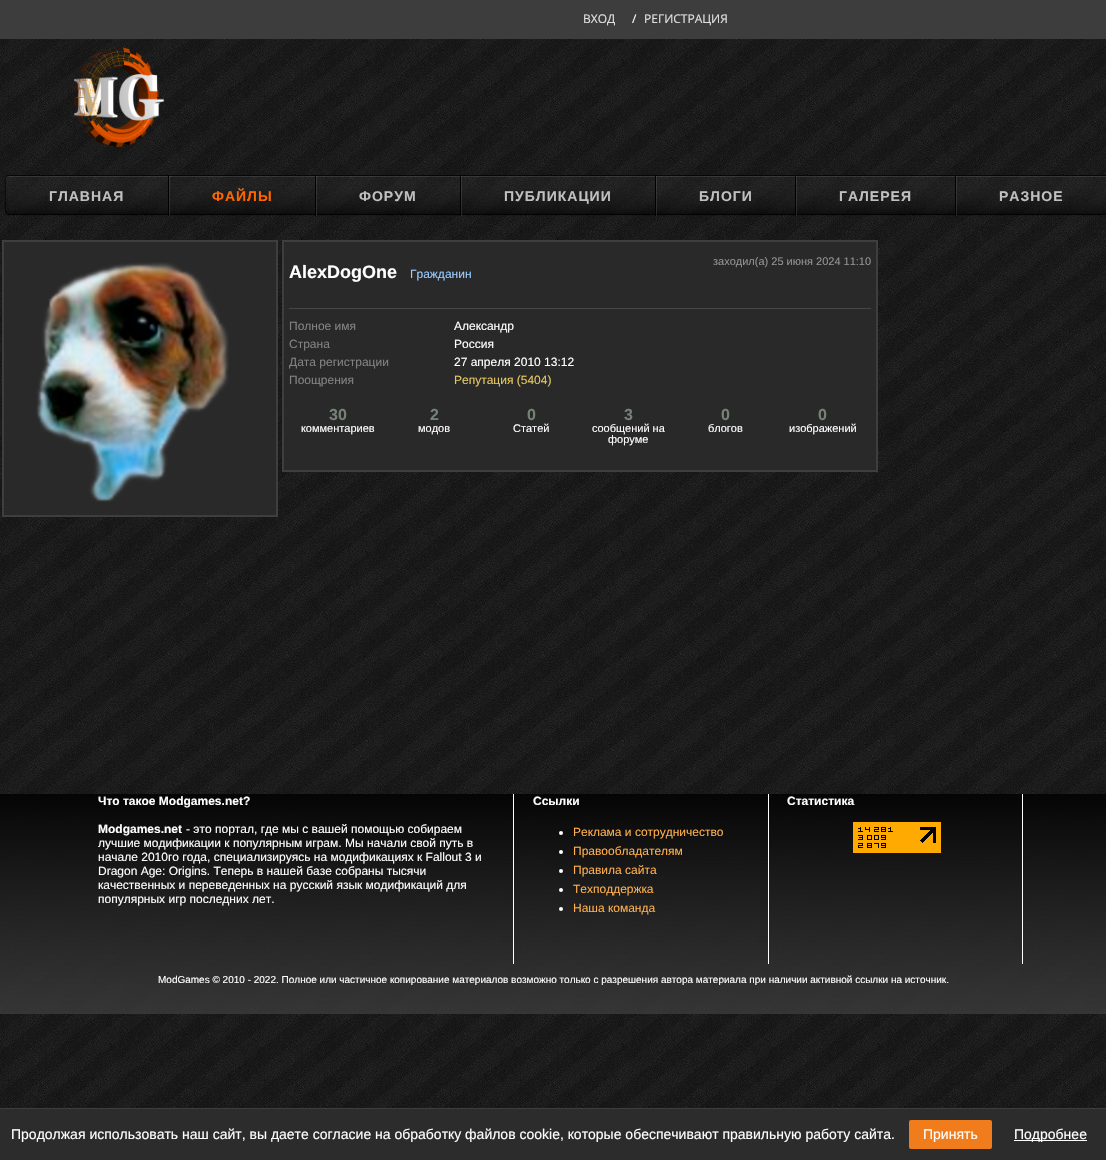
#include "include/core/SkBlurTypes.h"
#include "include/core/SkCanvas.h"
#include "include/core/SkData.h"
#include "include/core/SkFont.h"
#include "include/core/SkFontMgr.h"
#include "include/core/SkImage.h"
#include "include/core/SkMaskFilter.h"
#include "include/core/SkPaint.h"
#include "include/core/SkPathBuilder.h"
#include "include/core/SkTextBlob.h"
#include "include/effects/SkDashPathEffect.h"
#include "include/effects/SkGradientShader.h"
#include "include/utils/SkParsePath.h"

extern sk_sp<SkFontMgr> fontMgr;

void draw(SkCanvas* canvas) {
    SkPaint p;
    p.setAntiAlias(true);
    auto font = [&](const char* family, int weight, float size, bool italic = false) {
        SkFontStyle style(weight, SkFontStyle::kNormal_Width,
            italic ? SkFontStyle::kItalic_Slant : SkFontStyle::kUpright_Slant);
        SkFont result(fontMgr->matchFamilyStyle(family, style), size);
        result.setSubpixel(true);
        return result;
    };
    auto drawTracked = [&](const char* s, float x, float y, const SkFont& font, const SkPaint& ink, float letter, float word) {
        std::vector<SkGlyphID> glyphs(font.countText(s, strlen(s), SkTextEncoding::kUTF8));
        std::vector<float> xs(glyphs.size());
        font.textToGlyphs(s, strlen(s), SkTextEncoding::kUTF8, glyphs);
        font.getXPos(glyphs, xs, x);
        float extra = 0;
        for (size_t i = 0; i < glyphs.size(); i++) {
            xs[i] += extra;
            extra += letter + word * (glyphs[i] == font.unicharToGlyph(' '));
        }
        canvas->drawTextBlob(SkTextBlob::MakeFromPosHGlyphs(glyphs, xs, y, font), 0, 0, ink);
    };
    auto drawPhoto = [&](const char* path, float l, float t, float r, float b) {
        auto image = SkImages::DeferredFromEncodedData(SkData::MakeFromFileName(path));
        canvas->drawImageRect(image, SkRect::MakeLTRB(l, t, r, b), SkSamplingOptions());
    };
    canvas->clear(0xFFFFFFFF);
    drawPhoto("media/1.png", 0, 39, 1106, 1108);
    p.setColor(0xFF3D3D3D);
    canvas->drawRect(SkRect::MakeLTRB(0, 0, 1106, 39), p);
    auto font1 = font("Open Sans", 400, 12);
    p.setColor(0xFFE0E0E0);
    canvas->drawString("ВХОД", 583, 23, font1, p);
    p.setColor(0xFFFFFFFF);
    canvas->drawString("/", 632, 23, font1, p);
    p.setColor(0xFFE0E0E0);
    canvas->drawString("РЕГИСТРАЦИЯ", 644, 23, font1, p);
    drawPhoto("media/2.png", 73, 47, 165, 147);
    canvas->save();
    canvas->clipPath(SkPathBuilder(SkPathFillType::kEvenOdd).moveTo(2, 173).lineTo(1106, 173).lineTo(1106, 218).lineTo(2, 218).close().moveTo(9, 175).lineTo(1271, 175).cubicTo(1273, 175, 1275, 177, 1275, 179).lineTo(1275, 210).cubicTo(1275, 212, 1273, 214, 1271, 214).lineTo(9, 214).cubicTo(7, 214, 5, 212, 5, 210).lineTo(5, 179).cubicTo(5, 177, 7, 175, 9, 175).close().detach(), true);
    p.setColor(0xFF000000);
    p.setMaskFilter(SkMaskFilter::MakeBlur(kNormal_SkBlurStyle, 0.5f));
    canvas->drawRoundRect(SkRect::MakeLTRB(5, 176, 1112, 215), 4, 4, p);
    p.setMaskFilter(nullptr);
    canvas->restore();
    canvas->save();
    canvas->clipPath(SkPathBuilder().moveTo(9, 175).lineTo(1271, 175).cubicTo(1273, 175, 1275, 177, 1275, 179).lineTo(1275, 210).cubicTo(1275, 212, 1273, 214, 1271, 214).lineTo(9, 214).cubicTo(7, 214, 5, 212, 5, 210).lineTo(5, 179).cubicTo(5, 177, 7, 175, 9, 175).close().detach(), true);
    {
        const SkColor colors[] = {0x1A555555, 0x66000000};
        const float stops[] = {0, 1};
        const SkPoint ends[] = {{640, 139}, {640, 176}};
        p.setShader(SkGradientShader::MakeLinear(ends, colors, stops, 2, SkTileMode::kClamp));
        p.setAlpha(255);
    }
    canvas->drawRect(SkRect::MakeLTRB(5, 175, 1106, 176), p);
    {
        const SkColor colors[] = {0x1A555555, 0x66000000};
        const float stops[] = {0, 1};
        const SkPoint ends[] = {{640, 176}, {640, 213}};
        p.setShader(SkGradientShader::MakeLinear(ends, colors, stops, 2, SkTileMode::kClamp));
        p.setAlpha(255);
    }
    canvas->drawRect(SkRect::MakeLTRB(5, 176, 1106, 213), p);
    canvas->restore();
    {
        const SkColor colors[] = {0x1A555555, 0x66000000};
        const float stops[] = {0, 1};
        const SkPoint ends[] = {{640, 213}, {640, 250}};
        p.setShader(SkGradientShader::MakeLinear(ends, colors, stops, 2, SkTileMode::kClamp));
        p.setAlpha(255);
    }
    canvas->drawRect(SkRect::MakeLTRB(5, 213, 1106, 214), p);
    p.setShader(nullptr);
    p.setColor(0x1AFFFFFF);
    canvas->drawPath(SkPathBuilder().moveTo(9, 177).lineTo(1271, 177).cubicTo(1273, 177, 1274, 178, 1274, 180).lineTo(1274, 179).cubicTo(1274, 177, 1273, 176, 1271, 176).lineTo(9, 176).cubicTo(7, 176, 6, 177, 6, 179).lineTo(6, 180).cubicTo(6, 178, 7, 177, 9, 177).close().detach(), p);
    p.setStyle(SkPaint::kStroke_Style);
    p.setStrokeWidth(1);
    p.setColor(0x99000000);
    canvas->drawRoundRect(SkRect::MakeLTRB(5.5f, 175.5f, 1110.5f, 213.5f), 3.5f, 3.5f, p);
    p.setStyle(SkPaint::kFill_Style);
    p.setColor(0x1AFFFFFF);
    canvas->drawRect(SkRect::MakeLTRB(169, 176, 170, 216), p);
    p.setColor(0xFF000000);
    canvas->drawRect(SkRect::MakeLTRB(168, 176, 169, 216), p);
    auto font2 = font("Liberation Sans", 700, 14);
    p.setColor(0xFFC0C0C0);
    drawTracked("ГЛАВНАЯ", 49, 201, font2, p, 1, 0);
    p.setColor(0x1AFFFFFF);
    canvas->drawRect(SkRect::MakeLTRB(316, 176, 317, 216), p);
    p.setColor(0xFF000000);
    canvas->drawRect(SkRect::MakeLTRB(315, 176, 316, 216), p);
    p.setColor(0xFFFF6600);
    drawTracked("ФАЙЛЫ", 212, 201, font2, p, 1, 0);
    p.setColor(0x1AFFFFFF);
    canvas->drawRect(SkRect::MakeLTRB(461, 176, 462, 216), p);
    p.setColor(0xFF000000);
    canvas->drawRect(SkRect::MakeLTRB(460, 176, 461, 216), p);
    p.setColor(0xFFC0C0C0);
    drawTracked("ФОРУМ", 359, 201, font2, p, 1, 0);
    p.setColor(0x1AFFFFFF);
    canvas->drawRect(SkRect::MakeLTRB(656, 176, 657, 216), p);
    p.setColor(0xFF000000);
    canvas->drawRect(SkRect::MakeLTRB(655, 176, 656, 216), p);
    p.setColor(0xFFC0C0C0);
    drawTracked("ПУБЛИКАЦИИ", 504, 201, font2, p, 1, 0);
    p.setColor(0x1AFFFFFF);
    canvas->drawRect(SkRect::MakeLTRB(796, 176, 797, 216), p);
    p.setColor(0xFF000000);
    canvas->drawRect(SkRect::MakeLTRB(795, 176, 796, 216), p);
    p.setColor(0xFFC0C0C0);
    drawTracked("БЛОГИ", 699, 201, font2, p, 1, 0);
    p.setColor(0x1AFFFFFF);
    canvas->drawRect(SkRect::MakeLTRB(956, 176, 957, 216), p);
    p.setColor(0xFF000000);
    canvas->drawRect(SkRect::MakeLTRB(955, 176, 956, 216), p);
    p.setColor(0xFFC0C0C0);
    drawTracked("ГАЛЕРЕЯ", 839, 201, font2, p, 1, 0);
    drawTracked("РАЗНОЕ", 999, 201, font2, p, 1, 0);
    p.setStyle(SkPaint::kStroke_Style);
    p.setColor(0xFF3F3F3F);
    canvas->drawRect(SkRect::MakeLTRB(2.5f, 240.5f, 277.5f, 516.5f), p);
    p.setStyle(SkPaint::kFill_Style);
    p.setColor(0xFF292929);
    canvas->drawRect(SkRect::MakeLTRB(3.5f, 241.5f, 276.5f, 515.5f), p);
    p.setStyle(SkPaint::kStroke_Style);
    p.setColor(0xFF3D3D3D);
    canvas->drawRect(SkRect::MakeLTRB(3.5f, 241.5f, 276.5f, 515.5f), p);
    drawPhoto("media/3.png", 36, 262, 229, 502);
    p.setColor(0xFF3F3F3F);
    canvas->drawRect(SkRect::MakeLTRB(282.5f, 240.5f, 877.5f, 471.5f), p);
    p.setStyle(SkPaint::kFill_Style);
    p.setColor(0xFF292929);
    canvas->drawRect(SkRect::MakeLTRB(283.5f, 241.5f, 876.5f, 470.5f), p);
    p.setStyle(SkPaint::kStroke_Style);
    p.setColor(0xFF3D3D3D);
    canvas->drawRect(SkRect::MakeLTRB(283.5f, 241.5f, 876.5f, 470.5f), p);
    p.setStyle(SkPaint::kFill_Style);
    p.setColor(0xFF464646);
    canvas->drawRect(SkRect::MakeLTRB(289, 308, 871, 309), p);
    auto font3 = font("Liberation Sans", 400, 11);
    p.setColor(0xFF939393);
    canvas->drawString("заходил(а) 25 июня 2024 11:10", 713, 265, font3, p);
    auto font4 = font("Liberation Sans", 700, 18);
    p.setColor(0xFFFFFFFF);
    canvas->drawString("AlexDogOne", 289, 278, font4, p);
    auto font5 = font("Liberation Sans", 400, 12);
    p.setColor(0xFF99CCFF);
    canvas->drawString("Гражданин", 410, 278, font5, p);
    p.setColor(0xFF828282);
    canvas->drawString("Полное имя", 289, 330, font5, p);
    p.setColor(0xFFFFFFFF);
    canvas->drawString("Александр", 454, 330, font5, p);
    p.setColor(0xFF828282);
    canvas->drawString("Страна", 289, 348, font5, p);
    p.setColor(0xFFFFFFFF);
    canvas->drawString("Россия", 454, 348, font5, p);
    p.setColor(0xFF828282);
    canvas->drawString("Дата регистрации", 289, 366, font5, p);
    p.setColor(0xFFFFFFFF);
    canvas->drawString("27 апреля 2010 13:12", 454, 366, font5, p);
    p.setColor(0xFF828282);
    canvas->drawString("Поощрения", 289, 384, font5, p);
    p.setColor(0xFFE6C75E);
    canvas->drawString("Репутация (5404)", 454, 384, font5, p);
    auto font6 = font("Liberation Sans", 700, 16);
    p.setColor(0xFF768276);
    canvas->drawString("30", 329, 420, font6, p);
    p.setColor(0xFFFFFFFF);
    canvas->drawString("комментариев", 301, 432, font3, p);
    p.setColor(0xFF768276);
    canvas->drawString("2", 430, 420, font6, p);
    p.setColor(0xFFFFFFFF);
    canvas->drawString("модов", 418, 432, font3, p);
    p.setColor(0xFF768276);
    canvas->drawString("0", 527, 420, font6, p);
    p.setColor(0xFFFFFFFF);
    canvas->drawString("Статей", 513, 432, font3, p);
    p.setColor(0xFF768276);
    canvas->drawString("3", 624, 420, font6, p);
    p.setColor(0xFFFFFFFF);
    canvas->drawString("сообщений на", 592, 432, font3, p);
    canvas->drawString("форуме", 608, 443, font3, p);
    p.setColor(0xFF768276);
    canvas->drawString("0", 721, 420, font6, p);
    p.setColor(0xFFFFFFFF);
    canvas->drawString("блогов", 708, 432, font3, p);
    p.setColor(0xFF768276);
    canvas->drawString("0", 818, 420, font6, p);
    p.setColor(0xFFFFFFFF);
    canvas->drawString("изображений", 789, 432, font3, p);
    canvas->drawRect(SkRect::MakeLTRB(513, 794, 514, 964), p);
    auto font7 = font("Liberation Sans", 700, 12);
    canvas->drawString("Что такое Modgames.net?", 98, 805, font7, p);
    canvas->drawString("Modgames.net", 98, 833, font7, p);
    {
        const struct { const char* s; float x, y; } items[] = {
            {"- это портал, где мы с вашей помощью собираем", 186, 833},
            {"лучшие модификации к популярным играм. Мы начали свой путь в", 98, 847},
            {"начале 2010го года, специализируясь на модификациях к Fallout 3 и", 98, 861},
            {"Dragon Age: Origins. Теперь в нашей базе собраны тысячи", 98, 875},
            {"качественных и переведенных на русский язык модификаций для", 98, 889},
            {"популярных игр последних лет.", 98, 903},
        };
        for (auto [s, x, y] : items) {
            canvas->drawString(s, x, y, font5, p);
        }
    }
    canvas->drawRect(SkRect::MakeLTRB(768, 794, 769, 964), p);
    canvas->drawString("Ссылки", 533, 805, font7, p);
    canvas->drawCircle(561, 833, 2, p);
    p.setColor(0xFFFFAF4B);
    canvas->drawString("Реклама и сотрудничество", 573, 836, font5, p);
    p.setColor(0xFFFFFFFF);
    canvas->drawCircle(561, 852, 2, p);
    p.setColor(0xFFFFAF4B);
    canvas->drawString("Правообладателям", 573, 855, font5, p);
    p.setColor(0xFFFFFFFF);
    canvas->drawCircle(561, 871, 2, p);
    p.setColor(0xFFFFAF4B);
    canvas->drawString("Правила сайта", 573, 874, font5, p);
    p.setColor(0xFFFFFFFF);
    canvas->drawCircle(561, 890, 2, p);
    p.setColor(0xFFFFAF4B);
    canvas->drawString("Техподдержка", 573, 893, font5, p);
    p.setColor(0xFFFFFFFF);
    canvas->drawCircle(561, 909, 2, p);
    p.setColor(0xFFFFAF4B);
    canvas->drawString("Наша команда", 573, 912, font5, p);
    p.setColor(0xFFFFFFFF);
    canvas->drawRect(SkRect::MakeLTRB(1022, 794, 1023, 964), p);
    canvas->drawString("Статистика", 787, 805, font7, p);
    drawPhoto("media/4.png", 853, 822, 941, 853);
    auto font8 = font("Liberation Sans", 400, 10);
    canvas->drawString("ModGames © 2010 - 2022. Полное или частичное копирование материалов возможно только с разрешения автора материала при наличии активной ссылки на источник.", 158, 983, font8, p);
    p.setColor(0xFF2C2C2C);
    canvas->drawRect(SkRect::MakeLTRB(0, 1109, 1106, 1160), p);
    p.setColor(0xFF3D3D3D);
    canvas->drawRect(SkRect::MakeLTRB(0, 1108, 1106, 1109), p);
    auto font9 = font("Liberation Sans", 400, 14);
    p.setColor(0xFFFFFFFF);
    canvas->drawString("Продолжая использовать наш сайт, вы даете согласие на обработку файлов cookie, которые обеспечивают правильную работу сайта.", 11, 1139, font9, p);
    p.setColor(0xFFF17C1C);
    canvas->drawRoundRect(SkRect::MakeLTRB(909, 1120, 992, 1149), 2, 2, p);
    p.setColor(0xFFFFFFFF);
    canvas->drawString("Принять", 923, 1139, font9, p);
    canvas->drawRect(SkRect::MakeLTRB(1014, 1140, 1087, 1141), p);
    canvas->drawString("Подробнее", 1014, 1139, font9, p);
}
